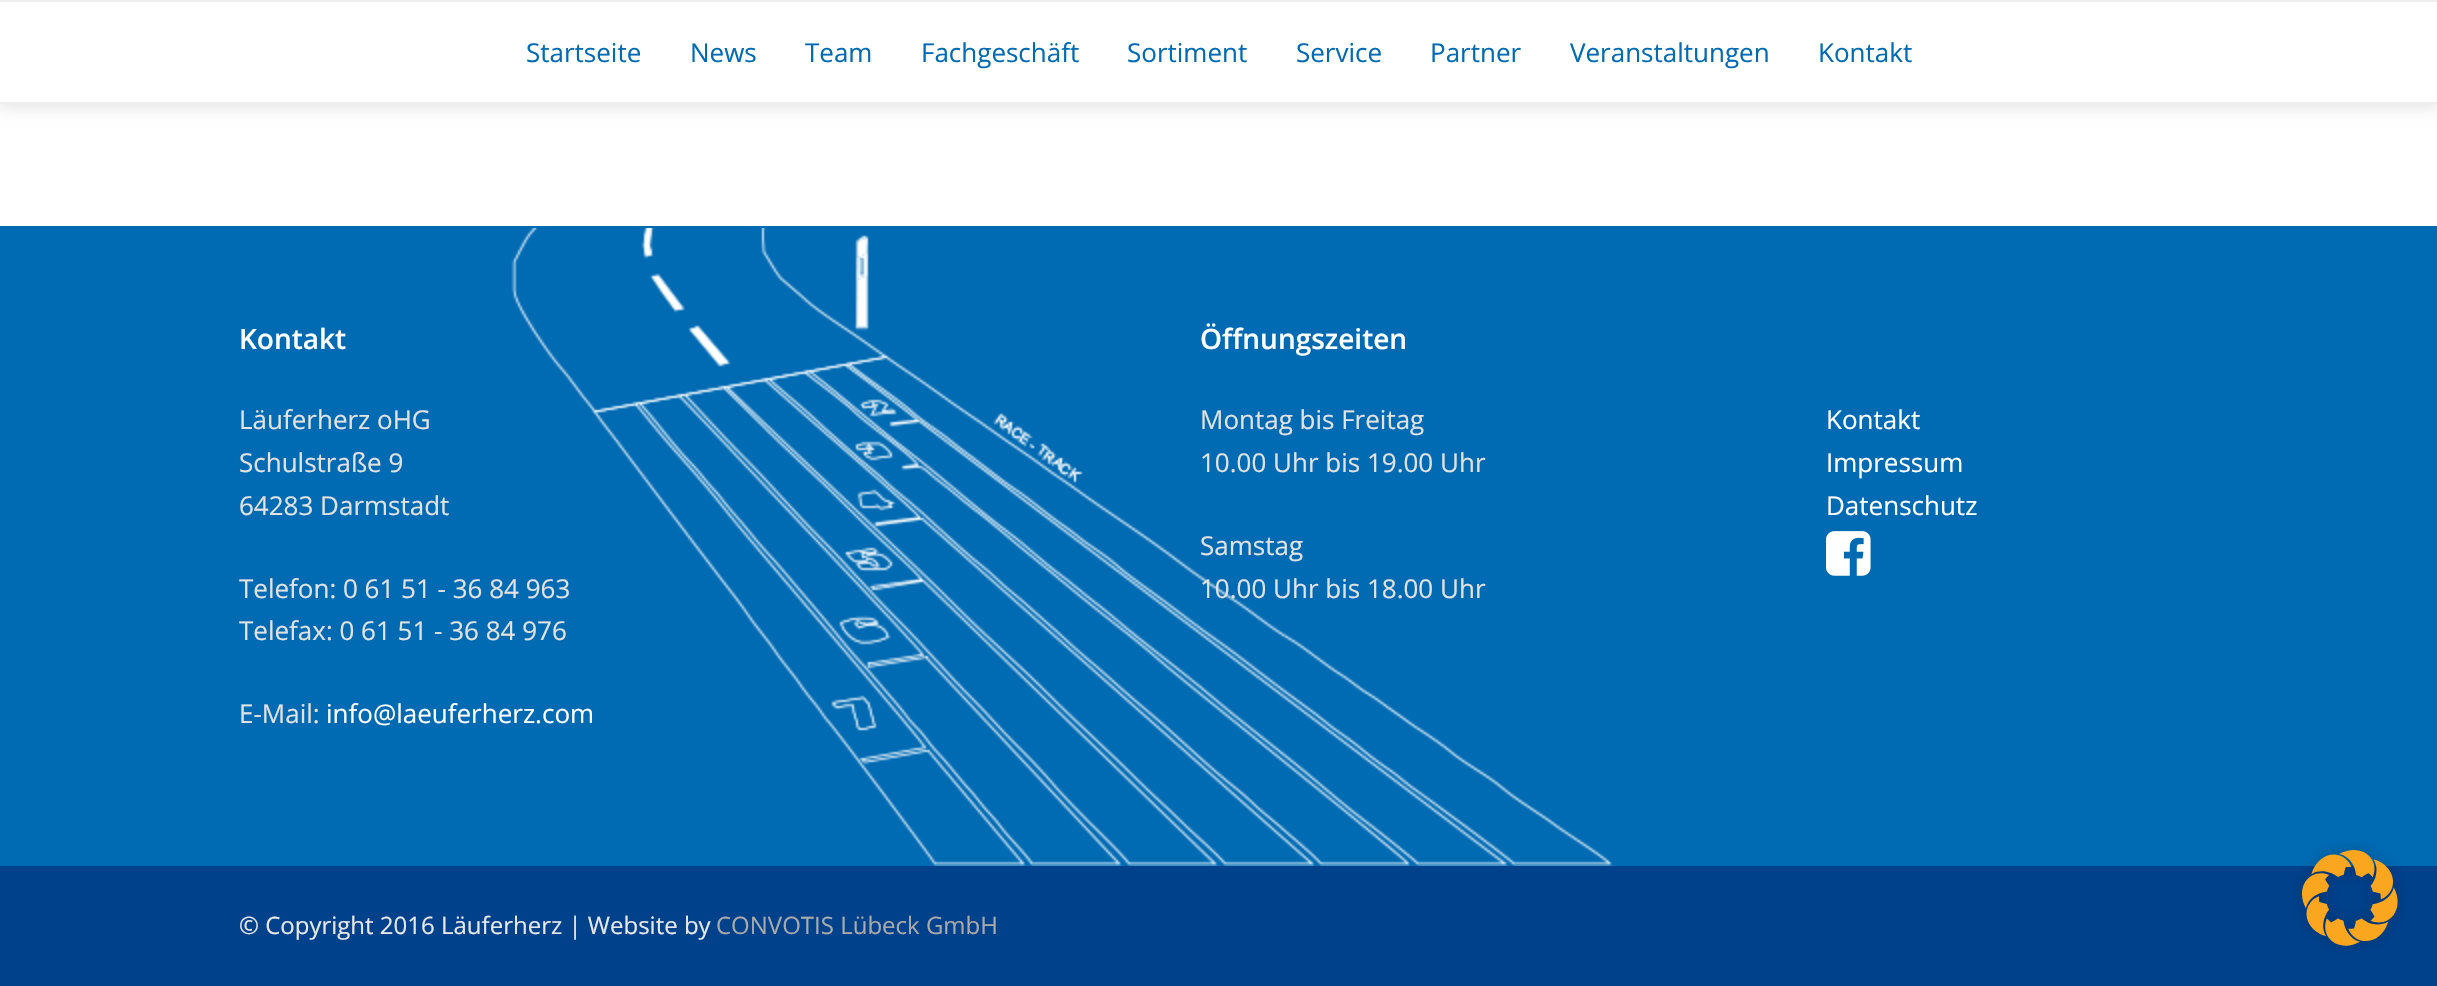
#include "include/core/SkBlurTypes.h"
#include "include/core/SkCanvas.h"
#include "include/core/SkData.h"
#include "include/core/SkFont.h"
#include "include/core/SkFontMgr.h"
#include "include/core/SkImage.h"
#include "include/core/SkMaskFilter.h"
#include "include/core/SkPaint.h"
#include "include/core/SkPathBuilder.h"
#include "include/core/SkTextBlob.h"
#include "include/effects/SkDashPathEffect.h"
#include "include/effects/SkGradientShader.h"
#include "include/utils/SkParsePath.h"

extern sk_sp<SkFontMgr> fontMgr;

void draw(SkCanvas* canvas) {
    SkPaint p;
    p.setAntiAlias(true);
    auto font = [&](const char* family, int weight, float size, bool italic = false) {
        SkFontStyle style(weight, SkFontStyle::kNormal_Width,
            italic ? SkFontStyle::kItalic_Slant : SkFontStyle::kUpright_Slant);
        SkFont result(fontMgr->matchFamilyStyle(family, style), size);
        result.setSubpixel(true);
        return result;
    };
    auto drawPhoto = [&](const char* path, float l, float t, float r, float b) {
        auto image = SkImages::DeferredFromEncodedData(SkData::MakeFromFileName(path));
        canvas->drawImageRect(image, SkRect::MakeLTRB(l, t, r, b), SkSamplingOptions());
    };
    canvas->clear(0xFFFFFFFF);
    p.setColor(0x1A000000);
    p.setMaskFilter(SkMaskFilter::MakeBlur(kNormal_SkBlurStyle, 7));
    canvas->drawRect(SkRect::MakeLTRB(0, 4, 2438, 108), p);
    p.setMaskFilter(nullptr);
    {
        const struct { float l, t, r, b; SkColor color; } items[] = {
            {0, 2, 2437, 102, 0xFFFFFFFF},
            {0, 0, 2437, 2, 0xFFEEEEEE},
            {0, 102, 2437, 104, 0xFFEEEEEE},
        };
        for (auto [l, t, r, b, color] : items) {
            p.setColor(color);
            canvas->drawRect(SkRect::MakeLTRB(l, t, r, b), p);
        }
    }
    auto font1 = font("Open Sans", 400, 26);
    p.setColor(0xFF006AB3);
    {
        const struct { const char* s; float x, y; } items[] = {
            {"Startseite", 526, 62},
            {"News", 690, 62},
            {"Team", 805, 62},
            {"Fachgeschäft", 921, 62},
            {"Sortiment", 1127, 62},
            {"Service", 1296, 62},
            {"Partner", 1430, 62},
            {"Veranstaltungen", 1570, 62},
            {"Kontakt", 1818, 62},
        };
        for (auto [s, x, y] : items) {
            canvas->drawString(s, x, y, font1, p);
        }
    }
    canvas->drawRect(SkRect::MakeLTRB(0, 226, 2437, 866), p);
    drawPhoto("media/1.png", 511, 228, 1613, 866);
    auto font2 = font("Open Sans", 600, 28);
    p.setColor(0xFFFFFFFF);
    canvas->drawString("Kontakt", 239, 349, font2, p);
    p.setColor(0xFFE2E2E2);
    {
        const struct { const char* s; float x, y; } items[] = {
            {"Läuferherz oHG", 239, 429},
            {"Schulstraße 9", 239, 472},
            {"64283 Darmstadt", 239, 515},
            {"Telefon: 0 61 51 - 36 84 963", 239, 598},
            {"Telefax: 0 61 51 - 36 84 976", 239, 640},
            {"E-Mail:", 239, 723},
        };
        for (auto [s, x, y] : items) {
            canvas->drawString(s, x, y, font1, p);
        }
    }
    p.setColor(0xFFFFFFFF);
    canvas->drawString("info@laeuferherz.com", 326, 723, font1, p);
    canvas->drawString("Öffnungszeiten", 1200, 349, font2, p);
    p.setColor(0xFFE2E2E2);
    {
        const struct { const char* s; float x, y; } items[] = {
            {"Montag bis Freitag", 1200, 429},
            {"10.00 Uhr bis 19.00 Uhr", 1200, 472},
            {"Samstag", 1200, 555},
            {"10.00 Uhr bis 18.00 Uhr", 1200, 598},
        };
        for (auto [s, x, y] : items) {
            canvas->drawString(s, x, y, font1, p);
        }
    }
    p.setColor(0xFFFFFFFF);
    {
        const struct { const char* s; float x, y; } items[] = {
            {"Kontakt", 1826, 429},
            {"Impressum", 1826, 472},
            {"Datenschutz", 1826, 515},
        };
        for (auto [s, x, y] : items) {
            canvas->drawString(s, x, y, font1, p);
        }
    }
    drawPhoto("media/2.png", 1826, 531, 1871, 576);
    p.setColor(0xFF00418C);
    canvas->drawRect(SkRect::MakeLTRB(0, 866, 2437, 986), p);
    auto font3 = font("Open Sans", 400, 24);
    p.setColor(0xFFE8E8E8);
    canvas->drawString("© Copyright 2016 Läuferherz | Website by", 239, 934, font3, p);
    p.setColor(0xFFAAAAAA);
    canvas->drawString("CONVOTIS Lübeck GmbH", 716, 934, font3, p);
    drawPhoto("media/3.png", 2295, 842, 2405, 953);
}
